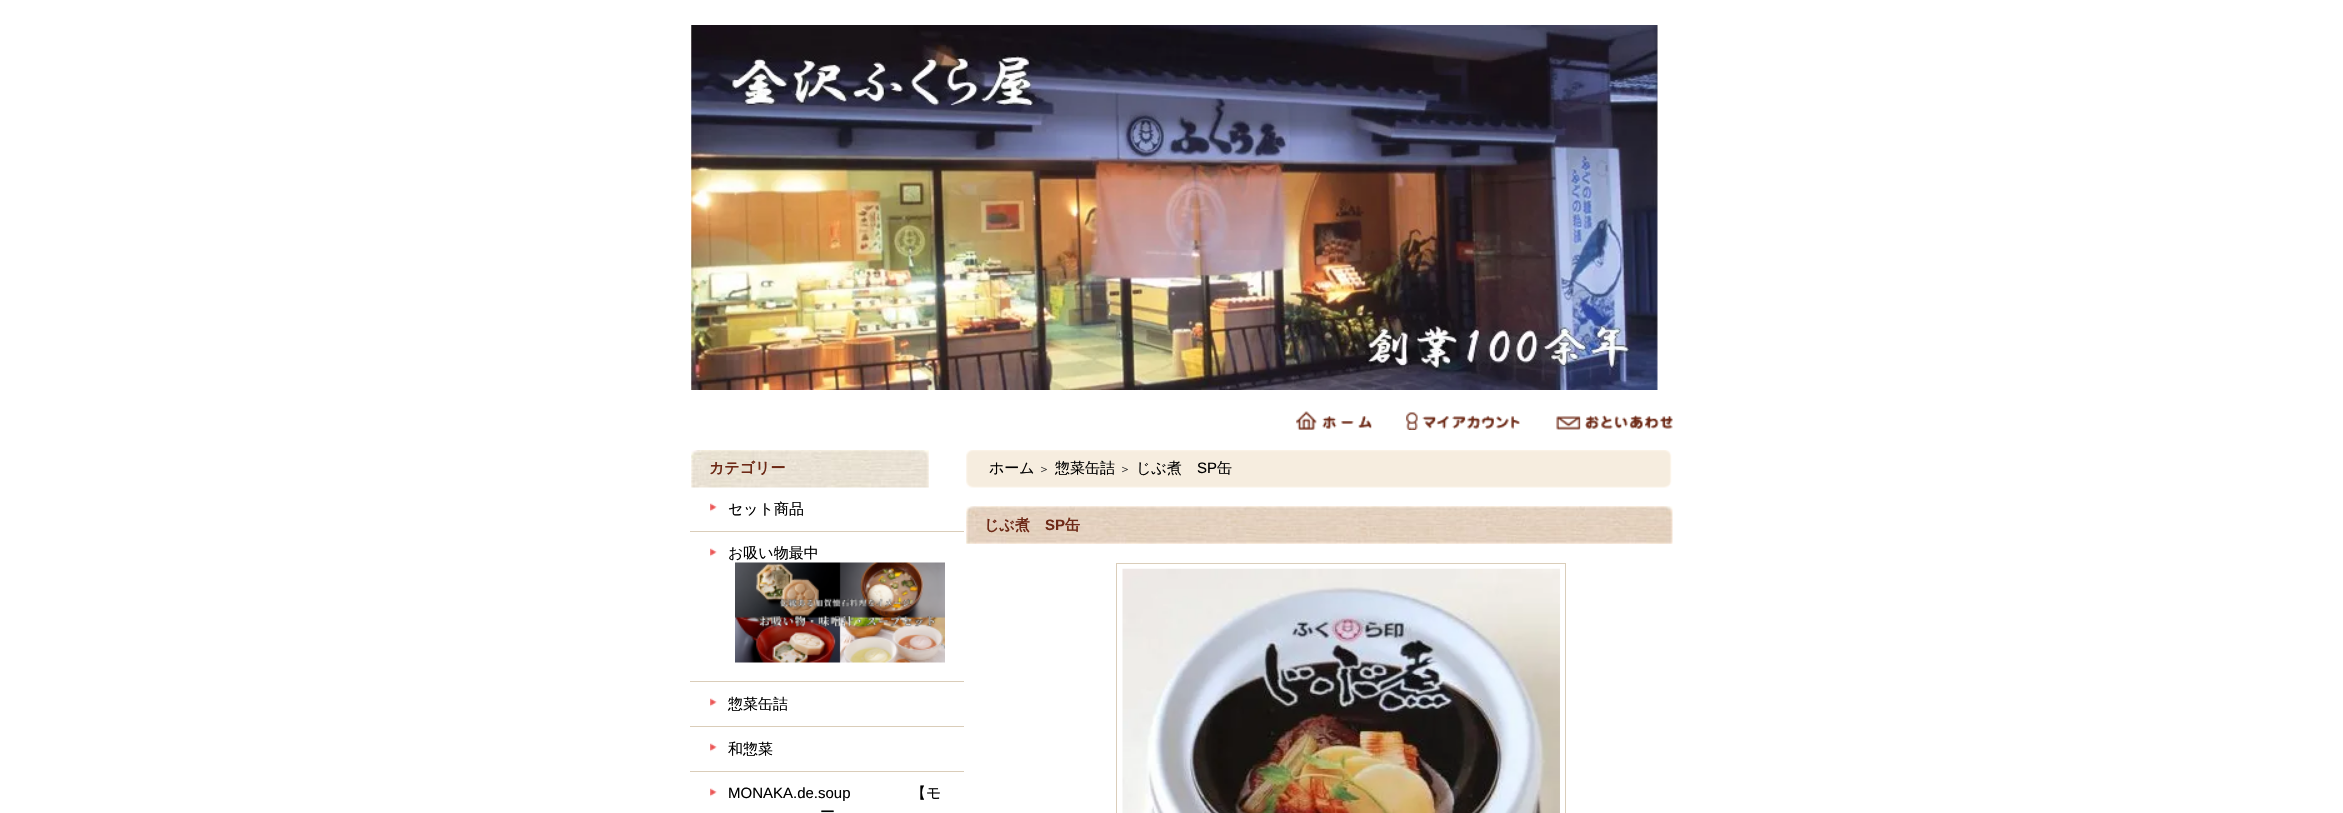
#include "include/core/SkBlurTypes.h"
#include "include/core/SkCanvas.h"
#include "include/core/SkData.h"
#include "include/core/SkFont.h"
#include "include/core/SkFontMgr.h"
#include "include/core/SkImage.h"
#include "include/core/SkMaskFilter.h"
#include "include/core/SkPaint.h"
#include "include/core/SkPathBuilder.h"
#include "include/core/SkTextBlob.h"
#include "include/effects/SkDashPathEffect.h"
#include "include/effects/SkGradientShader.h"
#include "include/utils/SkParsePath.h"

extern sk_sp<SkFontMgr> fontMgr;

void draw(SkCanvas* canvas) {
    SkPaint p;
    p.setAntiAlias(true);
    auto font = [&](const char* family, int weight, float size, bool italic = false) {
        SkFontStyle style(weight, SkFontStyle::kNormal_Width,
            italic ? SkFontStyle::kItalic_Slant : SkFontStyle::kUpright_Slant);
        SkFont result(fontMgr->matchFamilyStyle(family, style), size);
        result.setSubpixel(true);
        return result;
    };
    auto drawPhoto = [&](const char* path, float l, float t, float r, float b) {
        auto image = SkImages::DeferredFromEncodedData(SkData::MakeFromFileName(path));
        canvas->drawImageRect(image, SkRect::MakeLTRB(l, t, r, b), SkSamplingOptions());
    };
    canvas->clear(0xFFFFFFFF);
    drawPhoto("media/1.png", 691, 25, 1658, 177);
    drawPhoto("media/2.png", 691, 25, 1658, 390);
    drawPhoto("media/3.png", 1296, 411, 1372, 430);
    drawPhoto("media/4.png", 1406, 412, 1520, 430);
    drawPhoto("media/5.png", 1556, 415, 1673, 430);
    drawPhoto("media/6.png", 691, 450, 929, 488);
    auto font1 = font("WenQuanYi Zen Hei", 700, 15);
    p.setColor(0xFF6D2916);
    canvas->drawString("カテゴリー", 709, 473, font1, p);
    drawPhoto("media/7.png", 710, 503, 717, 512);
    p.setColor(0xFFDACDB9);
    canvas->drawRect(SkRect::MakeLTRB(690, 531, 964, 532), p);
    auto font2 = font("WenQuanYi Zen Hei", 500, 15);
    p.setColor(0xFF000000);
    canvas->drawString("セット商品", 728, 514, font2, p);
    drawPhoto("media/7.png", 710, 548, 717, 557);
    p.setColor(0xFFDACDB9);
    canvas->drawRect(SkRect::MakeLTRB(690, 681, 964, 682), p);
    p.setColor(0xFF000000);
    canvas->drawString("お吸い物最中", 728, 558, font2, p);
    drawPhoto("media/8.png", 735, 562, 945, 663);
    drawPhoto("media/7.png", 710, 698, 717, 707);
    p.setColor(0xFFDACDB9);
    canvas->drawRect(SkRect::MakeLTRB(690, 726, 964, 727), p);
    p.setColor(0xFF000000);
    canvas->drawString("惣菜缶詰", 728, 709, font2, p);
    drawPhoto("media/7.png", 710, 743, 717, 752);
    p.setColor(0xFFDACDB9);
    canvas->drawRect(SkRect::MakeLTRB(690, 771, 964, 772), p);
    p.setColor(0xFF000000);
    canvas->drawString("和惣菜", 728, 754, font2, p);
    drawPhoto("media/7.png", 710, 788, 717, 797);
    auto font3 = font("Liberation Sans", 400, 15);
    canvas->drawString("MONAKA.de.soup", 728, 798, font3, p);
    canvas->drawString("【モ", 911, 798, font2, p);
    canvas->drawString("ー", 820, 817, font2, p);
    drawPhoto("media/9.png", 966, 450, 1672, 488);
    canvas->drawString("ホーム", 989, 473, font2, p);
    auto font4 = font("WenQuanYi Zen Hei", 500, 12);
    p.setColor(0xFF333333);
    canvas->drawString("＞", 1038, 473, font4, p);
    p.setColor(0xFF000000);
    canvas->drawString("惣菜缶詰", 1055, 473, font2, p);
    p.setColor(0xFF333333);
    canvas->drawString("＞", 1119, 473, font4, p);
    p.setColor(0xFF000000);
    canvas->drawString("じぶ煮", 1136, 473, font2, p);
    canvas->drawString("SP", 1197, 473, font3, p);
    canvas->drawString("缶", 1217, 473, font2, p);
    drawPhoto("media/10.png", 966, 506, 1673, 544);
    p.setColor(0xFF6D2916);
    canvas->drawString("じぶ煮", 984, 530, font1, p);
    auto font5 = font("Liberation Sans", 700, 15);
    canvas->drawString("SP", 1045, 530, font5, p);
    canvas->drawString("缶", 1065, 530, font1, p);
    p.setStyle(SkPaint::kStroke_Style);
    p.setStrokeWidth(1);
    p.setColor(0xFFDACDB9);
    canvas->drawRect(SkRect::MakeLTRB(1116.5f, 563.5f, 1565.5f, 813.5f), p);
    drawPhoto("media/11.png", 1122, 568, 1560, 813);
}
